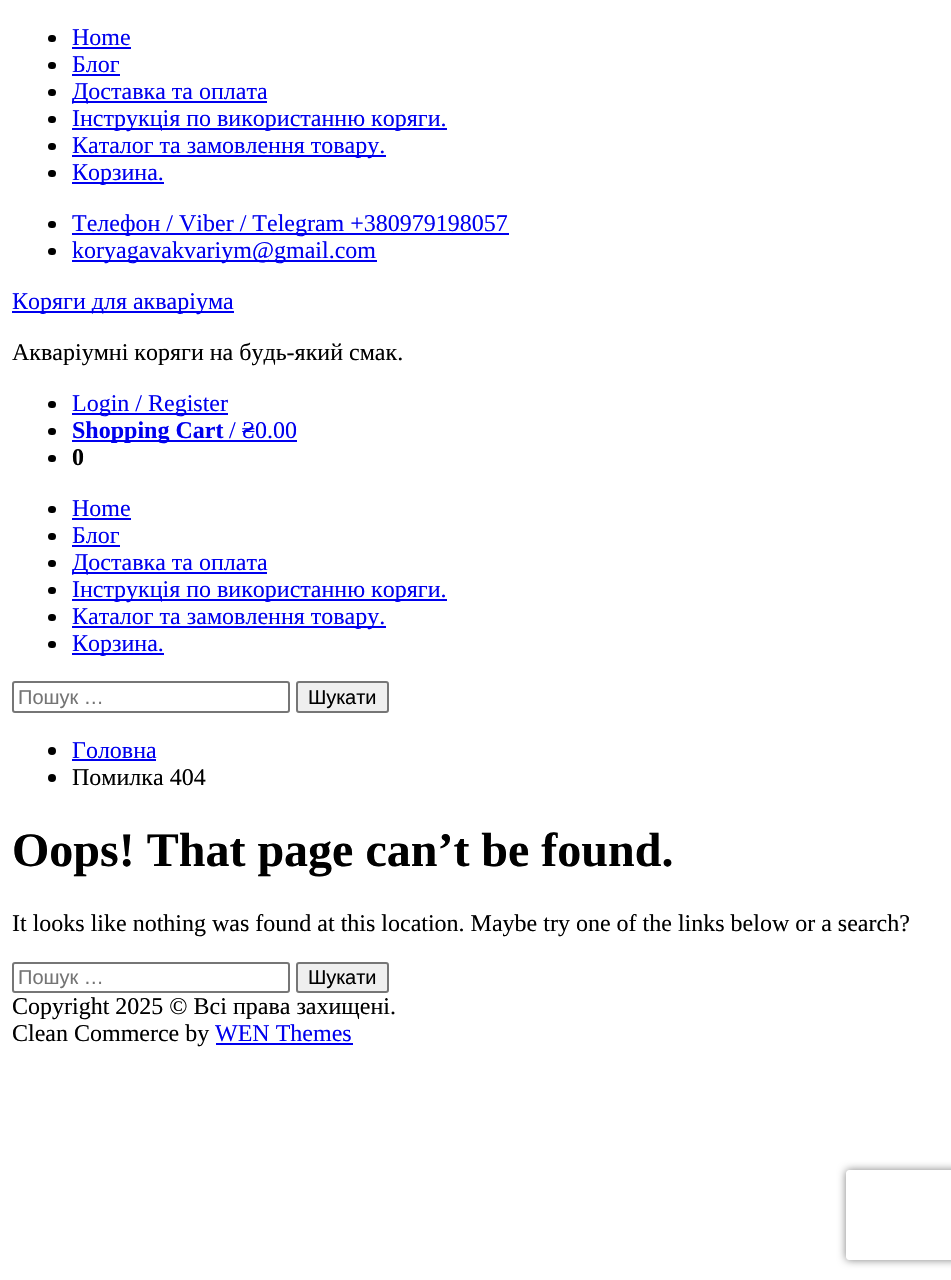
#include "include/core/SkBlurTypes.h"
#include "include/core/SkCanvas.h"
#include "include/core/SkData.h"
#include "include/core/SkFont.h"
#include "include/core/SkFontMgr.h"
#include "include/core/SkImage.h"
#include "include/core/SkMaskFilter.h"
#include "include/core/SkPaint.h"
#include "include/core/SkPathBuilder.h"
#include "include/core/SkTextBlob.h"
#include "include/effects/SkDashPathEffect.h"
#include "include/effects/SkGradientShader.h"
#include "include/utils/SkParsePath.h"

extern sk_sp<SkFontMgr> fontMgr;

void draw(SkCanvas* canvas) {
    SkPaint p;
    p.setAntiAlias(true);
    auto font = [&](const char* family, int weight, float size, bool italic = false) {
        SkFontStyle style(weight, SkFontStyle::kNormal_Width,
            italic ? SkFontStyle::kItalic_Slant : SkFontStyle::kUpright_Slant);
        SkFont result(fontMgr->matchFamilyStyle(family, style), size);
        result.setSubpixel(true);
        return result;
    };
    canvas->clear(0xFFFFFFFF);
    p.setColor(0xFF000000);
    canvas->drawRoundRect(SkRect::MakeLTRB(48, 35, 56, 42), 3.5f, 3.5f, p);
    auto font1 = font("Liberation Serif", 400, 24);
    p.setColor(0xFF0000EE);
    canvas->drawString("Home", 72, 45, font1, p);
    canvas->drawRect(SkRect::MakeLTRB(72, 47, 131, 49), p);
    p.setColor(0xFF000000);
    canvas->drawRoundRect(SkRect::MakeLTRB(48, 62, 56, 69), 3.5f, 3.5f, p);
    p.setColor(0xFF0000EE);
    canvas->drawString("Блог", 72, 72, font1, p);
    canvas->drawRect(SkRect::MakeLTRB(72, 74, 120, 76), p);
    p.setColor(0xFF000000);
    canvas->drawRoundRect(SkRect::MakeLTRB(48, 89, 56, 96), 3.5f, 3.5f, p);
    p.setColor(0xFF0000EE);
    canvas->drawRect(SkRect::MakeLTRB(72, 101, 267, 103), p);
    canvas->drawString("Доставка та оплата", 72, 99, font1, p);
    p.setColor(0xFF000000);
    canvas->drawRoundRect(SkRect::MakeLTRB(48, 116, 56, 123), 3.5f, 3.5f, p);
    p.setColor(0xFF0000EE);
    canvas->drawRect(SkRect::MakeLTRB(72, 128, 447, 130), p);
    canvas->drawString("Інструкція по використанню коряги.", 72, 126, font1, p);
    p.setColor(0xFF000000);
    canvas->drawRoundRect(SkRect::MakeLTRB(48, 143, 56, 150), 3.5f, 3.5f, p);
    p.setColor(0xFF0000EE);
    canvas->drawRect(SkRect::MakeLTRB(72, 155, 386, 157), p);
    canvas->drawString("Каталог та замовлення товару.", 72, 153, font1, p);
    p.setColor(0xFF000000);
    canvas->drawRoundRect(SkRect::MakeLTRB(48, 170, 56, 177), 3.5f, 3.5f, p);
    p.setColor(0xFF0000EE);
    canvas->drawRect(SkRect::MakeLTRB(72, 182, 164, 184), p);
    canvas->drawString("Корзина.", 72, 180, font1, p);
    p.setColor(0xFF000000);
    canvas->drawRoundRect(SkRect::MakeLTRB(48, 221, 56, 228), 3.5f, 3.5f, p);
    p.setColor(0xFF0000EE);
    canvas->drawRect(SkRect::MakeLTRB(72, 233, 509, 235), p);
    canvas->drawString("Телефон / Viber / Telegram +380979198057", 72, 231, font1, p);
    p.setColor(0xFF000000);
    canvas->drawRoundRect(SkRect::MakeLTRB(48, 248, 56, 255), 3.5f, 3.5f, p);
    p.setColor(0xFF0000EE);
    canvas->drawRect(SkRect::MakeLTRB(72, 260, 377, 262), p);
    canvas->drawString("koryagavakvariym@gmail.com", 72, 258, font1, p);
    canvas->drawRect(SkRect::MakeLTRB(12, 311, 234, 313), p);
    canvas->drawString("Коряги для акваріума", 12, 309, font1, p);
    p.setColor(0xFF000000);
    canvas->drawString("Акваріумні коряги на будь-який смак.", 12, 360, font1, p);
    canvas->drawRoundRect(SkRect::MakeLTRB(48, 401, 56, 408), 3.5f, 3.5f, p);
    p.setColor(0xFF0000EE);
    canvas->drawRect(SkRect::MakeLTRB(72, 413, 228, 415), p);
    canvas->drawString("Login / Register", 72, 411, font1, p);
    p.setColor(0xFF000000);
    canvas->drawRoundRect(SkRect::MakeLTRB(48, 428, 56, 435), 3.5f, 3.5f, p);
    p.setColor(0xFF0000EE);
    canvas->drawRect(SkRect::MakeLTRB(72, 440, 297, 442), p);
    auto font2 = font("Liberation Serif", 700, 24);
    canvas->drawString("Shopping Cart", 72, 438, font2, p);
    canvas->drawString("/ ₴0.00", 229, 438, font1, p);
    p.setColor(0xFF000000);
    canvas->drawRoundRect(SkRect::MakeLTRB(48, 455, 56, 462), 3.5f, 3.5f, p);
    canvas->drawString("0", 72, 465, font2, p);
    canvas->drawRoundRect(SkRect::MakeLTRB(48, 506, 56, 513), 3.5f, 3.5f, p);
    p.setColor(0xFF0000EE);
    canvas->drawString("Home", 72, 516, font1, p);
    canvas->drawRect(SkRect::MakeLTRB(72, 518, 131, 520), p);
    p.setColor(0xFF000000);
    canvas->drawRoundRect(SkRect::MakeLTRB(48, 533, 56, 540), 3.5f, 3.5f, p);
    p.setColor(0xFF0000EE);
    canvas->drawString("Блог", 72, 543, font1, p);
    canvas->drawRect(SkRect::MakeLTRB(72, 545, 120, 547), p);
    p.setColor(0xFF000000);
    canvas->drawRoundRect(SkRect::MakeLTRB(48, 560, 56, 567), 3.5f, 3.5f, p);
    p.setColor(0xFF0000EE);
    canvas->drawRect(SkRect::MakeLTRB(72, 572, 267, 574), p);
    canvas->drawString("Доставка та оплата", 72, 570, font1, p);
    p.setColor(0xFF000000);
    canvas->drawRoundRect(SkRect::MakeLTRB(48, 587, 56, 594), 3.5f, 3.5f, p);
    p.setColor(0xFF0000EE);
    canvas->drawRect(SkRect::MakeLTRB(72, 599, 447, 601), p);
    canvas->drawString("Інструкція по використанню коряги.", 72, 597, font1, p);
    p.setColor(0xFF000000);
    canvas->drawRoundRect(SkRect::MakeLTRB(48, 614, 56, 621), 3.5f, 3.5f, p);
    p.setColor(0xFF0000EE);
    canvas->drawRect(SkRect::MakeLTRB(72, 626, 386, 628), p);
    canvas->drawString("Каталог та замовлення товару.", 72, 624, font1, p);
    p.setColor(0xFF000000);
    canvas->drawRoundRect(SkRect::MakeLTRB(48, 641, 56, 648), 3.5f, 3.5f, p);
    p.setColor(0xFF0000EE);
    canvas->drawRect(SkRect::MakeLTRB(72, 653, 164, 655), p);
    canvas->drawString("Корзина.", 72, 651, font1, p);
    p.setStyle(SkPaint::kStroke_Style);
    p.setStrokeWidth(2);
    p.setColor(0xFF767676);
    canvas->drawRoundRect(SkRect::MakeLTRB(13, 682, 289, 712), 2, 2, p);
    auto font3 = font("Liberation Sans", 400, 20);
    p.setStyle(SkPaint::kFill_Style);
    p.setColor(0xFF757575);
    canvas->drawString("Пошук …", 18, 704, font3, p);
    p.setColor(0xFFEFEFEF);
    canvas->drawRoundRect(SkRect::MakeLTRB(297, 682, 388, 712), 2, 2, p);
    p.setStyle(SkPaint::kStroke_Style);
    p.setColor(0xFF767676);
    canvas->drawRoundRect(SkRect::MakeLTRB(297, 682, 388, 712), 2, 2, p);
    p.setStyle(SkPaint::kFill_Style);
    p.setColor(0xFF000000);
    canvas->drawString("Шукати", 308, 704, font3, p);
    canvas->drawCircle(52, 751, 4, p);
    p.setColor(0xFF0000EE);
    canvas->drawString("Головна", 72, 758, font1, p);
    canvas->drawRect(SkRect::MakeLTRB(72, 759, 156, 761), p);
    p.setColor(0xFF000000);
    canvas->drawCircle(52, 778, 4, p);
    canvas->drawString("Помилка 404", 72, 785, font1, p);
    auto font4 = font("Liberation Serif", 700, 48);
    canvas->drawString("Oops! That page can’t be found.", 12, 866, font4, p);
    canvas->drawString("It looks like nothing was found at this location. Maybe try one of the links below or a search?", 12, 931, font1, p);
    p.setStyle(SkPaint::kStroke_Style);
    p.setColor(0xFF767676);
    canvas->drawRoundRect(SkRect::MakeLTRB(13, 963, 289, 992), 2, 2, p);
    p.setStyle(SkPaint::kFill_Style);
    p.setColor(0xFF757575);
    canvas->drawString("Пошук …", 18, 984, font3, p);
    p.setColor(0xFFEFEFEF);
    canvas->drawRoundRect(SkRect::MakeLTRB(297, 963, 388, 992), 2, 2, p);
    p.setStyle(SkPaint::kStroke_Style);
    p.setColor(0xFF767676);
    canvas->drawRoundRect(SkRect::MakeLTRB(297, 963, 388, 992), 2, 2, p);
    p.setStyle(SkPaint::kFill_Style);
    p.setColor(0xFF000000);
    canvas->drawString("Шукати", 308, 984, font3, p);
    canvas->drawString("Copyright 2025 © Всі права захищені.", 12, 1014, font1, p);
    canvas->drawString("Clean Commerce by", 12, 1041, font1, p);
    p.setColor(0xFF0000EE);
    canvas->drawString("WEN Themes", 215, 1041, font1, p);
    canvas->drawRect(SkRect::MakeLTRB(216, 1043, 353, 1045), p);
    canvas->save();
    canvas->clipPath(SkPathBuilder(SkPathFillType::kEvenOdd).moveTo(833, 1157).lineTo(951, 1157).lineTo(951, 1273).lineTo(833, 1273).close().moveTo(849, 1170).lineTo(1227, 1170).cubicTo(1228.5f, 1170, 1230, 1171.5f, 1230, 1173).lineTo(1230, 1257).cubicTo(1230, 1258.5f, 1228.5f, 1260, 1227, 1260).lineTo(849, 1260).cubicTo(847.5f, 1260, 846, 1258.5f, 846, 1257).lineTo(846, 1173).cubicTo(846, 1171.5f, 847.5f, 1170, 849, 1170).close().detach(), true);
    p.setColor(0xFF808080);
    p.setMaskFilter(SkMaskFilter::MakeBlur(kNormal_SkBlurStyle, 4));
    canvas->drawRoundRect(SkRect::MakeLTRB(846, 1170, 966, 1260), 3, 3, p);
    p.setMaskFilter(nullptr);
    canvas->restore();
}
